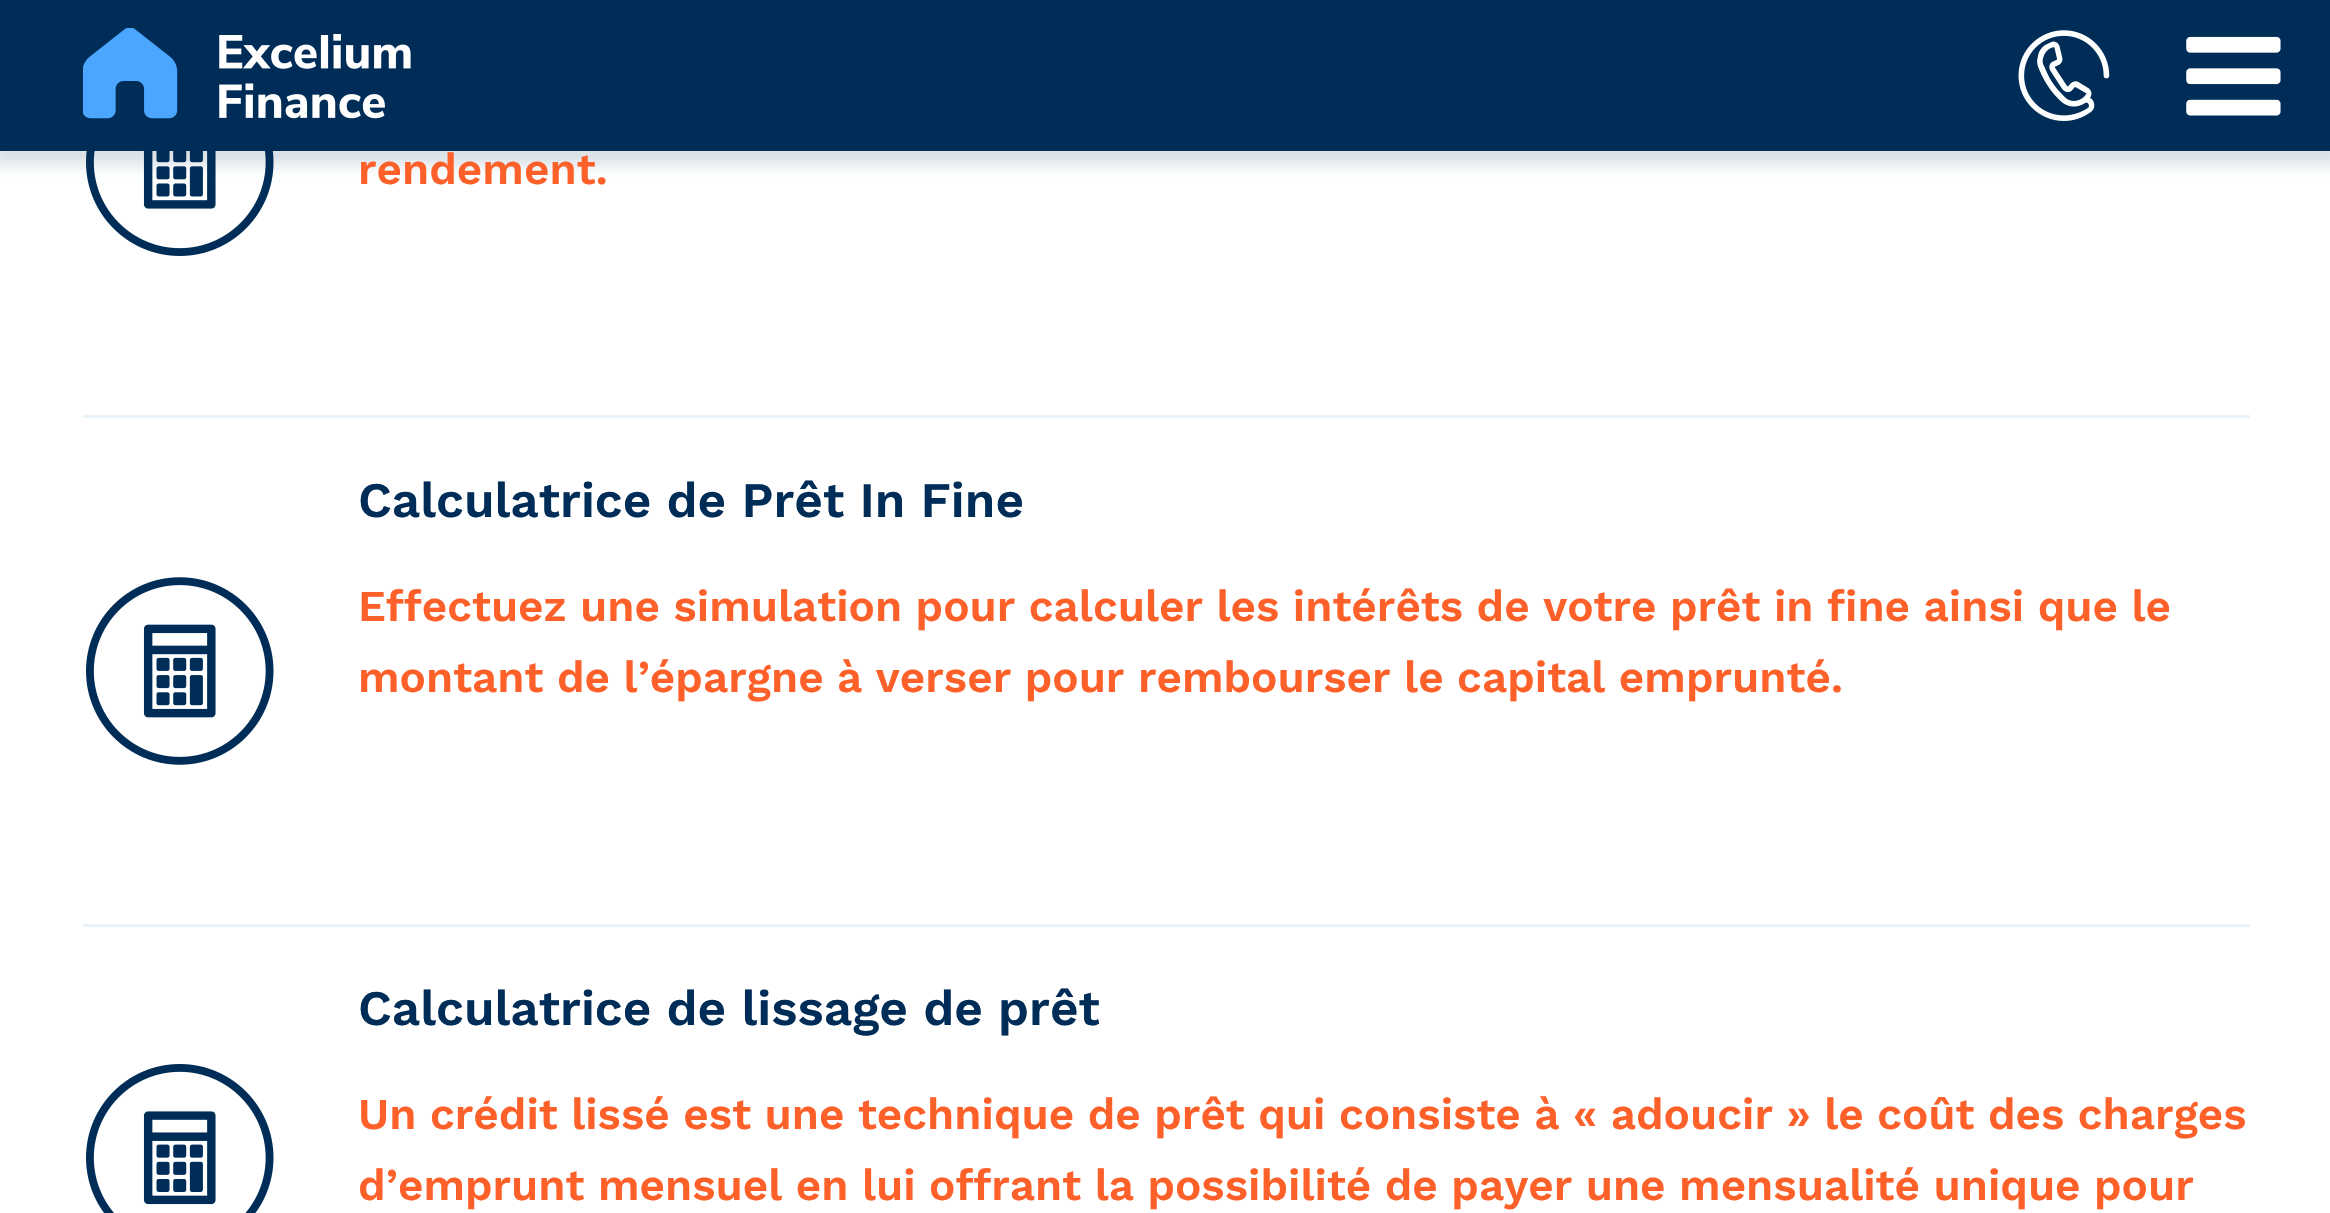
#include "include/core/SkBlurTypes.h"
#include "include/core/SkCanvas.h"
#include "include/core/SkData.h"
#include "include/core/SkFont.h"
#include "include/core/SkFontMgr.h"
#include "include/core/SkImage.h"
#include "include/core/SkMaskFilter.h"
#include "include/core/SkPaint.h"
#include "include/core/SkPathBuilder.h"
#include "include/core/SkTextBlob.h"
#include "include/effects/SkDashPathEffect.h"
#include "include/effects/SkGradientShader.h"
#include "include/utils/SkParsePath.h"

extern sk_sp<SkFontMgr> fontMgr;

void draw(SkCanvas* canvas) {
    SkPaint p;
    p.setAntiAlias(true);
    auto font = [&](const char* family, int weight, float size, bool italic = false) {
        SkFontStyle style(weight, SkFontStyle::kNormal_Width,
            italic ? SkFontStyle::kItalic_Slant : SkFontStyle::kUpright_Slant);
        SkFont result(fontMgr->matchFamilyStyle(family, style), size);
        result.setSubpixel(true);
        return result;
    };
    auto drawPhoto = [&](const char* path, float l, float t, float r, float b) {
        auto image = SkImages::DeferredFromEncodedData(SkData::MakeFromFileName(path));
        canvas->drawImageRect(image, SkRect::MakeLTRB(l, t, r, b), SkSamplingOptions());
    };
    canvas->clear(0xFFFFFFFF);
    drawPhoto("media/4.png", 86, 151, 274, 256);
    p.setColor(0x26002D57);
    p.setMaskFilter(SkMaskFilter::MakeBlur(kNormal_SkBlurStyle, 7));
    canvas->drawRect(SkRect::MakeLTRB(-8, -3, 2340, 165), p);
    p.setMaskFilter(nullptr);
    p.setColor(0xFF002D57);
    canvas->drawRect(SkRect::MakeLTRB(0, 0, 2330, 151), p);
    drawPhoto("media/1.png", 83, 28, 411, 119);
    drawPhoto("media/2.png", 2018, 30, 2110, 121);
    drawPhoto("media/3.png", 2186, 36, 2281, 116);
    p.setColor(0xFFE9F4FA);
    canvas->drawRect(SkRect::MakeLTRB(83, 415, 2250, 418), p);
    auto font1 = font("Work Sans", 600, 44);
    p.setColor(0xFFFD6029);
    canvas->drawString("rendement.", 358, 184, font1, p);
    p.setColor(0xFFE9F4FA);
    canvas->drawRect(SkRect::MakeLTRB(83, 924, 2250, 927), p);
    drawPhoto("media/5.png", 86, 577, 274, 765);
    auto font2 = font("Work Sans", 600, 49.5f);
    p.setColor(0xFF002D57);
    canvas->drawString("Calculatrice de Prêt In Fine", 358, 517, font2, p);
    p.setColor(0xFFFD6029);
    canvas->drawString("Effectuez une simulation pour calculer les intérêts de votre prêt in fine ainsi que le", 358, 621, font1, p);
    canvas->drawString("montant de l’épargne à verser pour rembourser le capital emprunté.", 358, 692, font1, p);
    drawPhoto("media/6.png", 86, 1064, 274, 1213);
    p.setColor(0xFF002D57);
    canvas->drawString("Calculatrice de lissage de prêt", 358, 1025, font2, p);
    p.setColor(0xFFFD6029);
    canvas->drawString("Un crédit lissé est une technique de prêt qui consiste à « adoucir » le coût des charges", 358, 1129, font1, p);
    canvas->drawString("d’emprunt mensuel en lui offrant la possibilité de payer une mensualité unique pour", 358, 1200, font1, p);
}
